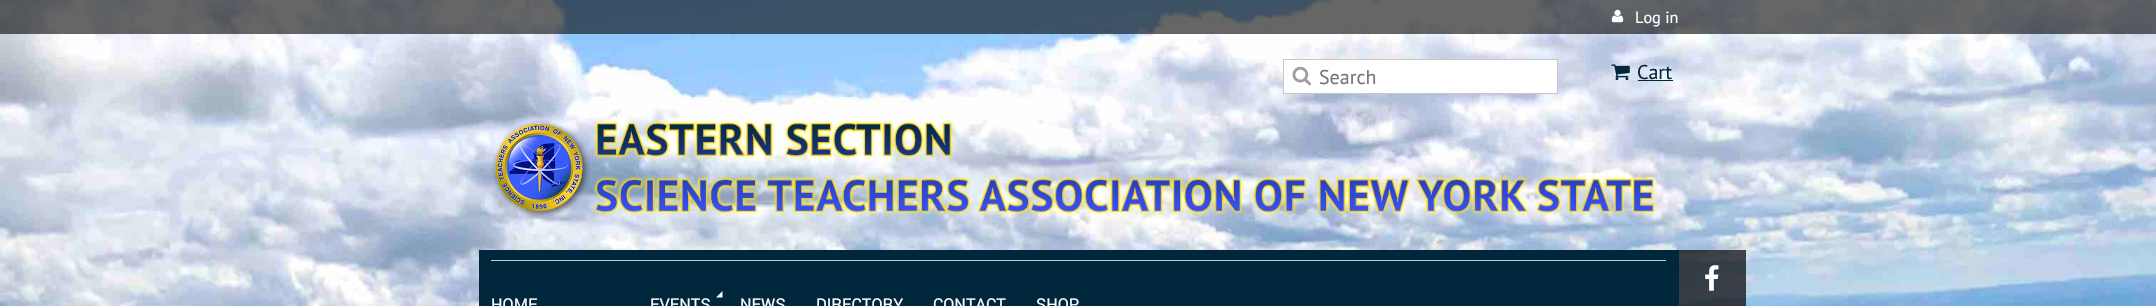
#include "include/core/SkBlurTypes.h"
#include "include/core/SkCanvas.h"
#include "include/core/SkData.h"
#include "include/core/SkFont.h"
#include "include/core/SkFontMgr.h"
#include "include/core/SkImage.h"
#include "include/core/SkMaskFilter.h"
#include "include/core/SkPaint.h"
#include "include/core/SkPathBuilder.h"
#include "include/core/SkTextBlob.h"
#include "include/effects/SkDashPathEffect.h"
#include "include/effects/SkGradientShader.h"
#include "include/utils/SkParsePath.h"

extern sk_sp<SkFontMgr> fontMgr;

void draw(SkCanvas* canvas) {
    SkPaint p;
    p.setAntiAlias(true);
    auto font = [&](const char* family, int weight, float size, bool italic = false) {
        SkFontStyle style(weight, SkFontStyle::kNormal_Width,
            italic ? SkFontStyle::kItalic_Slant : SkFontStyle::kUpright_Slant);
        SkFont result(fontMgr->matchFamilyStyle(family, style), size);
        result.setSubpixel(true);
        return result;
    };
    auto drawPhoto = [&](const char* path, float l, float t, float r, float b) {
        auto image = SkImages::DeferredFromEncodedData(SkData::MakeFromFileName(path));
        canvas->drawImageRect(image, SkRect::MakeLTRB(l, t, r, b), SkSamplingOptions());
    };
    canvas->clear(0xFFFFFFFF);
    drawPhoto("media/1.png", 0, 0, 2156, 306);
    p.setColor(0x99000000);
    canvas->drawRect(SkRect::MakeLTRB(0, 0, 2156, 34), p);
    drawPhoto("media/2.png", 1611, 9, 1624, 23);
    auto font1 = font("PT Sans", 400, 16.25f);
    p.setColor(0xFFFFFFFF);
    canvas->drawString("Log in", 1635, 23, font1, p);
    canvas->drawRect(SkRect::MakeLTRB(1283.5f, 59.5f, 1557.5f, 93.5f), p);
    p.setStyle(SkPaint::kStroke_Style);
    p.setStrokeWidth(1);
    p.setColor(0xFFC6C6C6);
    canvas->drawRect(SkRect::MakeLTRB(1283.5f, 59.5f, 1557.5f, 93.5f), p);
    drawPhoto("media/3.png", 1292, 66, 1311, 86);
    auto font2 = font("PT Sans", 400, 20);
    p.setStyle(SkPaint::kFill_Style);
    p.setColor(0xFF757575);
    canvas->drawString("Search", 1319, 84, font2, p);
    drawPhoto("media/4.png", 1611, 64, 1630, 81);
    p.setColor(0xFF01273C);
    canvas->drawString("Cart", 1637, 79, font2, p);
    canvas->drawRect(SkRect::MakeLTRB(1638, 80, 1673, 81), p);
    drawPhoto("media/5.png", 492, 120, 590, 219);
    drawPhoto("media/6.png", 592, 119, 1657, 216);
    canvas->drawRect(SkRect::MakeLTRB(479, 250, 1679, 306), p);
    p.setColor(0xFFC6CDD0);
    canvas->drawRect(SkRect::MakeLTRB(491, 260, 1666, 261), p);
    auto font3 = font("Roboto", 400, 16.25f);
    p.setColor(0xFFFFFFFF);
    canvas->drawString("HOME", 491, 310, font3, p);
    canvas->drawPath(SkPathBuilder().moveTo(722.5f, 297.5f).lineTo(716, 297.5f).lineTo(722.5f, 291).close().detach(), p);
    {
        const struct { const char* s; float x, y; } items[] = {
            {"EVENTS", 650, 310},
            {"NEWS", 740, 310},
            {"DIRECTORY", 816, 310},
            {"CONTACT", 933, 310},
            {"SHOP", 1036, 310},
        };
        for (auto [s, x, y] : items) {
            canvas->drawString(s, x, y, font3, p);
        }
    }
    p.setColor(0xB3000000);
    canvas->drawRect(SkRect::MakeLTRB(1679, 250, 1746, 306), p);
    drawPhoto("media/7.png", 1705, 265, 1719, 291);
}
